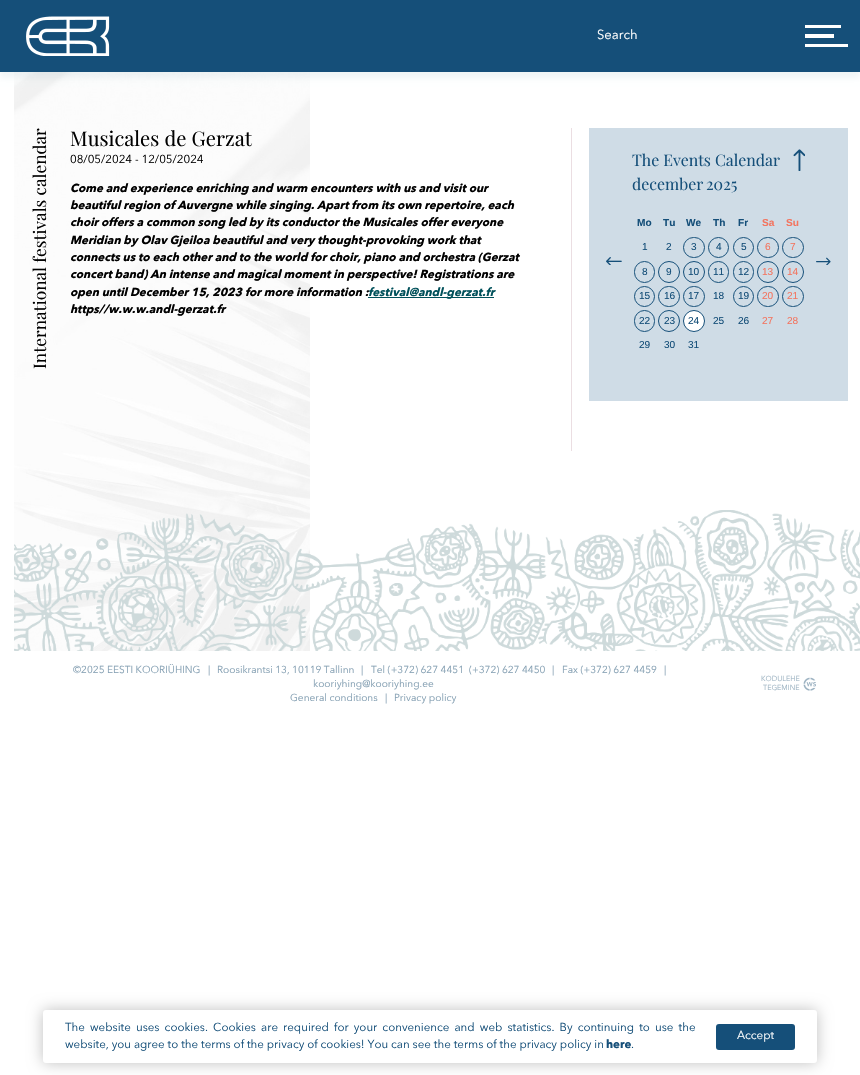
#include "include/core/SkBlurTypes.h"
#include "include/core/SkCanvas.h"
#include "include/core/SkData.h"
#include "include/core/SkFont.h"
#include "include/core/SkFontMgr.h"
#include "include/core/SkImage.h"
#include "include/core/SkMaskFilter.h"
#include "include/core/SkPaint.h"
#include "include/core/SkPathBuilder.h"
#include "include/core/SkTextBlob.h"
#include "include/effects/SkDashPathEffect.h"
#include "include/effects/SkGradientShader.h"
#include "include/utils/SkParsePath.h"

extern sk_sp<SkFontMgr> fontMgr;

void draw(SkCanvas* canvas) {
    SkPaint p;
    p.setAntiAlias(true);
    auto font = [&](const char* family, int weight, float size, bool italic = false) {
        SkFontStyle style(weight, SkFontStyle::kNormal_Width,
            italic ? SkFontStyle::kItalic_Slant : SkFontStyle::kUpright_Slant);
        SkFont result(fontMgr->matchFamilyStyle(family, style), size);
        result.setSubpixel(true);
        return result;
    };
    auto drawTracked = [&](const char* s, float x, float y, const SkFont& font, const SkPaint& ink, float letter, float word) {
        std::vector<SkGlyphID> glyphs(font.countText(s, strlen(s), SkTextEncoding::kUTF8));
        std::vector<float> xs(glyphs.size());
        font.textToGlyphs(s, strlen(s), SkTextEncoding::kUTF8, glyphs);
        font.getXPos(glyphs, xs, x);
        float extra = 0;
        for (size_t i = 0; i < glyphs.size(); i++) {
            xs[i] += extra;
            extra += letter + word * (glyphs[i] == font.unicharToGlyph(' '));
        }
        canvas->drawTextBlob(SkTextBlob::MakeFromPosHGlyphs(glyphs, xs, y, font), 0, 0, ink);
    };
    auto drawPhoto = [&](const char* path, float l, float t, float r, float b) {
        auto image = SkImages::DeferredFromEncodedData(SkData::MakeFromFileName(path));
        canvas->drawImageRect(image, SkRect::MakeLTRB(l, t, r, b), SkSamplingOptions());
    };
    canvas->clear(0xFFFFFFFF);
    drawPhoto("media/1.png", 14, 72, 310, 651);
    p.setColor(0x0F005C66);
    p.setMaskFilter(SkMaskFilter::MakeBlur(kNormal_SkBlurStyle, 3));
    canvas->drawRect(SkRect::MakeLTRB(0, 6, 860, 78), p);
    p.setMaskFilter(nullptr);
    p.setColor(0xFF154F79);
    canvas->drawRect(SkRect::MakeLTRB(0, 0, 860, 72), p);
    drawPhoto("media/2.png", 26, 16, 110, 56);
    auto font1 = font("Avenir Next", 400, 13);
    p.setColor(0xFFFFFFFF);
    canvas->drawString("Search", 597, 39, font1, p);
    {
        const struct { float l, t, r, b; SkColor color; } items[] = {
            {805, 25, 841, 28, 0xFFFFFFFF},
            {805, 34, 834, 38, 0xFFFFFFFF},
            {805, 44, 848, 47, 0xFFFFFFFF},
        };
        for (auto [l, t, r, b, color] : items) {
            p.setColor(color);
            canvas->drawRect(SkRect::MakeLTRB(l, t, r, b), p);
        }
    }
    auto font2 = font("Playfair Display", 400, 17.25f);
    p.setColor(0xFF010101);
    canvas->save();
    canvas->rotate(-90, 46, 369);
    canvas->drawString("International festivals calendar", 46, 369, font2, p);
    canvas->restore();
    auto font3 = font("Playfair Display", 400, 20.25f);
    canvas->drawString("Musicales de Gerzat", 70, 146, font3, p);
    auto font4 = font("Avenir Next", 400, 11.53f);
    canvas->drawString("08/05/2024 - 12/05/2024", 70, 163, font4, p);
    auto font5 = font("Avenir Next", 700, 11.53f, true);
    {
        const struct { const char* s; float x, y; } items[] = {
            {"Come and experience enriching and warm encounters with us and visit our", 70, 192},
            {"beautiful region of Auvergne while singing. Apart from its own repertoire, each", 70, 209},
            {"choir offers a common song led by its conductor the Musicales offer everyone", 70, 226},
            {"Meridian by Olav Gjeiloa beautiful and very thought-provoking work that", 70, 244},
            {"connects us to each other and to the world for choir, piano and orchestra (Gerzat", 70, 261},
            {"concert band) An intense and magical moment in perspective! Registrations are", 70, 278},
            {"open until December 15, 2023 for more information :", 70, 296},
        };
        for (auto [s, x, y] : items) {
            canvas->drawString(s, x, y, font5, p);
        }
    }
    p.setColor(0xFF00505A);
    canvas->drawRect(SkRect::MakeLTRB(368, 297, 494, 298), p);
    canvas->drawString("festival@andl-gerzat.fr", 368, 296, font5, p);
    p.setColor(0xFF010101);
    canvas->drawString("https//w.w.w.andl-gerzat.fr", 70, 313, font5, p);
    p.setColor(0xFFEBDEE2);
    canvas->drawRect(SkRect::MakeLTRB(571, 128, 572, 451), p);
    p.setColor(0xFFCFDCE6);
    canvas->drawRect(SkRect::MakeLTRB(589, 128, 848, 401), p);
    auto font6 = font("Playfair Display", 400, 15.9f);
    p.setColor(0xFF154F79);
    canvas->drawString("The Events Calendar", 632, 166, font6, p);
    drawPhoto("media/3.png", 793, 149, 805, 171);
    canvas->drawString("december", 632, 190, font6, p);
    canvas->drawString("2025", 706, 190, font6, p);
    drawPhoto("media/4.png", 606, 257, 622, 265);
    drawPhoto("media/5.png", 816, 257, 831, 265);
    auto font7 = font("Liberation Sans", 700, 10.1f);
    {
        const struct { const char* s; float x, y; } items[] = {
            {"Mo", 637, 226},
            {"Tu", 663, 226},
            {"We", 686, 226},
            {"Th", 713, 226},
            {"Fr", 738, 226},
        };
        for (auto [s, x, y] : items) {
            canvas->drawString(s, x, y, font7, p);
        }
    }
    p.setColor(0xFFF37560);
    canvas->drawString("Sa", 762, 226, font7, p);
    canvas->drawString("Su", 786, 226, font7, p);
    auto font8 = font("Liberation Sans", 400, 10.1f);
    p.setColor(0xFF154F79);
    canvas->drawString("1", 642, 250, font8, p);
    canvas->drawString("2", 666, 250, font8, p);
    p.setStyle(SkPaint::kStroke_Style);
    p.setStrokeWidth(1);
    canvas->drawRoundRect(SkRect::MakeLTRB(683.5f, 237.5f, 704.5f, 257.5f), 10, 10, p);
    p.setStyle(SkPaint::kFill_Style);
    canvas->drawString("3", 691, 250, font8, p);
    p.setStyle(SkPaint::kStroke_Style);
    canvas->drawCircle(718.5f, 247.5f, 10, p);
    p.setStyle(SkPaint::kFill_Style);
    canvas->drawString("4", 716, 250, font8, p);
    p.setStyle(SkPaint::kStroke_Style);
    canvas->drawCircle(743.5f, 247.5f, 10, p);
    p.setStyle(SkPaint::kFill_Style);
    canvas->drawString("5", 741, 250, font8, p);
    p.setStyle(SkPaint::kStroke_Style);
    canvas->drawRoundRect(SkRect::MakeLTRB(757.5f, 237.5f, 778.5f, 257.5f), 10, 10, p);
    p.setStyle(SkPaint::kFill_Style);
    p.setColor(0xFFF37560);
    canvas->drawString("6", 765, 250, font8, p);
    p.setStyle(SkPaint::kStroke_Style);
    p.setColor(0xFF154F79);
    canvas->drawRoundRect(SkRect::MakeLTRB(782.5f, 237.5f, 803.5f, 257.5f), 10, 10, p);
    p.setStyle(SkPaint::kFill_Style);
    p.setColor(0xFFF37560);
    canvas->drawString("7", 790, 250, font8, p);
    p.setStyle(SkPaint::kStroke_Style);
    p.setColor(0xFF154F79);
    canvas->drawRoundRect(SkRect::MakeLTRB(634.5f, 261.5f, 654.5f, 282.5f), 10, 10, p);
    p.setStyle(SkPaint::kFill_Style);
    canvas->drawString("8", 642, 275, font8, p);
    p.setStyle(SkPaint::kStroke_Style);
    canvas->drawCircle(669, 272, 10.5f, p);
    p.setStyle(SkPaint::kFill_Style);
    canvas->drawString("9", 666, 275, font8, p);
    p.setStyle(SkPaint::kStroke_Style);
    canvas->drawCircle(694, 272, 10.5f, p);
    p.setStyle(SkPaint::kFill_Style);
    canvas->drawString("10", 688, 275, font8, p);
    p.setStyle(SkPaint::kStroke_Style);
    canvas->drawRoundRect(SkRect::MakeLTRB(708.5f, 261.5f, 728.5f, 282.5f), 10, 10, p);
    p.setStyle(SkPaint::kFill_Style);
    canvas->drawString("11", 713, 275, font8, p);
    p.setStyle(SkPaint::kStroke_Style);
    canvas->drawRoundRect(SkRect::MakeLTRB(733.5f, 261.5f, 753.5f, 282.5f), 10, 10, p);
    p.setStyle(SkPaint::kFill_Style);
    canvas->drawString("12", 738, 275, font8, p);
    p.setStyle(SkPaint::kStroke_Style);
    canvas->drawCircle(768, 272, 10.5f, p);
    p.setStyle(SkPaint::kFill_Style);
    p.setColor(0xFFF37560);
    canvas->drawString("13", 762, 275, font8, p);
    p.setStyle(SkPaint::kStroke_Style);
    p.setColor(0xFF154F79);
    canvas->drawCircle(793, 272, 10.5f, p);
    p.setStyle(SkPaint::kFill_Style);
    p.setColor(0xFFF37560);
    canvas->drawString("14", 787, 275, font8, p);
    p.setStyle(SkPaint::kStroke_Style);
    p.setColor(0xFF154F79);
    canvas->drawCircle(644.5f, 296.5f, 10, p);
    p.setStyle(SkPaint::kFill_Style);
    canvas->drawString("15", 639, 299, font8, p);
    p.setStyle(SkPaint::kStroke_Style);
    canvas->drawRoundRect(SkRect::MakeLTRB(658.5f, 286.5f, 679.5f, 306.5f), 10, 10, p);
    p.setStyle(SkPaint::kFill_Style);
    canvas->drawString("16", 664, 299, font8, p);
    p.setStyle(SkPaint::kStroke_Style);
    canvas->drawRoundRect(SkRect::MakeLTRB(683.5f, 286.5f, 704.5f, 306.5f), 10, 10, p);
    p.setStyle(SkPaint::kFill_Style);
    canvas->drawString("17", 688, 299, font8, p);
    canvas->drawString("18", 713, 299, font8, p);
    p.setStyle(SkPaint::kStroke_Style);
    canvas->drawCircle(743.5f, 296.5f, 10, p);
    p.setStyle(SkPaint::kFill_Style);
    canvas->drawString("19", 738, 299, font8, p);
    p.setStyle(SkPaint::kStroke_Style);
    canvas->drawRoundRect(SkRect::MakeLTRB(757.5f, 286.5f, 778.5f, 306.5f), 10, 10, p);
    p.setStyle(SkPaint::kFill_Style);
    p.setColor(0xFFF37560);
    canvas->drawString("20", 762, 299, font8, p);
    p.setStyle(SkPaint::kStroke_Style);
    p.setColor(0xFF154F79);
    canvas->drawRoundRect(SkRect::MakeLTRB(782.5f, 286.5f, 803.5f, 306.5f), 10, 10, p);
    p.setStyle(SkPaint::kFill_Style);
    p.setColor(0xFFF37560);
    canvas->drawString("21", 787, 299, font8, p);
    p.setStyle(SkPaint::kStroke_Style);
    p.setColor(0xFF154F79);
    canvas->drawRoundRect(SkRect::MakeLTRB(634.5f, 310.5f, 654.5f, 331.5f), 10, 10, p);
    p.setStyle(SkPaint::kFill_Style);
    canvas->drawString("22", 639, 324, font8, p);
    p.setStyle(SkPaint::kStroke_Style);
    canvas->drawCircle(669, 321, 10.5f, p);
    p.setStyle(SkPaint::kFill_Style);
    canvas->drawString("23", 664, 324, font8, p);
    p.setColor(0xFFFFFFFF);
    canvas->drawCircle(694, 321, 10.5f, p);
    p.setStyle(SkPaint::kStroke_Style);
    p.setColor(0xFF154F79);
    canvas->drawCircle(694, 321, 10.5f, p);
    p.setStyle(SkPaint::kFill_Style);
    {
        const struct { const char* s; float x, y; } items[] = {
            {"24", 688, 324},
            {"25", 713, 324},
            {"26", 738, 324},
        };
        for (auto [s, x, y] : items) {
            canvas->drawString(s, x, y, font8, p);
        }
    }
    p.setColor(0xFFF37560);
    canvas->drawString("27", 762, 324, font8, p);
    canvas->drawString("28", 787, 324, font8, p);
    p.setColor(0xFF154F79);
    {
        const struct { const char* s; float x, y; } items[] = {
            {"29", 639, 348},
            {"30", 664, 348},
            {"31", 688, 348},
        };
        for (auto [s, x, y] : items) {
            canvas->drawString(s, x, y, font8, p);
        }
    }
    drawPhoto("media/6.png", 14, 510, 860, 651);
    auto font9 = font("Avenir Next", 400, 10.1f);
    p.setColor(0xFF85A0B3);
    {
        const struct { const char* s; float x, y; } items[] = {
            {"©2025 EESTI KOORIÜHING", 73, 673},
            {"|", 208, 673},
            {"Roosikrantsi 13, 10119 Tallinn", 217, 673},
            {"|", 361, 673},
            {"Tel (+372) 627 4451", 371, 673},
            {"(+372) 627 4450", 469, 673},
            {"|", 552, 673},
            {"Fax (+372) 627 4459", 562, 673},
            {"|", 664, 673},
            {"kooriyhing@kooriyhing.ee", 313, 687},
            {"General conditions", 290, 701},
            {"|", 385, 701},
            {"Privacy policy", 394, 701},
        };
        for (auto [s, x, y] : items) {
            canvas->drawString(s, x, y, font9, p);
        }
    }
    auto font10 = font("Avenir Next", 400, 7.25f);
    p.setColor(0xFF9DB3C2);
    canvas->drawString("KODULEHE", 761, 681, font10, p);
    canvas->drawString("TEGEMINE", 763, 690, font10, p);
    drawPhoto("media/7.png", 803, 677, 816, 691);
    p.setColor(0x40000000);
    p.setMaskFilter(SkMaskFilter::MakeBlur(kNormal_SkBlurStyle, 7.5f));
    canvas->drawRoundRect(SkRect::MakeLTRB(43, 1010, 817, 1063), 3, 3, p);
    p.setMaskFilter(nullptr);
    p.setColor(0xFFFFFFFF);
    canvas->drawRoundRect(SkRect::MakeLTRB(43, 1010, 817, 1063), 3, 3, p);
    p.setColor(0xFF154F79);
    drawTracked("The website uses cookies. Cookies are required for your convenience and web statistics. By continuing to use the", 65, 1031, font4, p, 0, 2.25f);
    canvas->drawString("website, you agree to the terms of the privacy of cookies! You can see the terms of the privacy policy in", 65, 1048, font4, p);
    auto font11 = font("Avenir Next", 700, 11.53f);
    canvas->drawString("here", 606, 1048, font11, p);
    canvas->drawString(".", 631, 1048, font4, p);
    canvas->drawRoundRect(SkRect::MakeLTRB(716, 1024, 795, 1050), 3, 3, p);
    p.setColor(0xFFFFFFFF);
    canvas->drawString("Accept", 737, 1039, font4, p);
}
